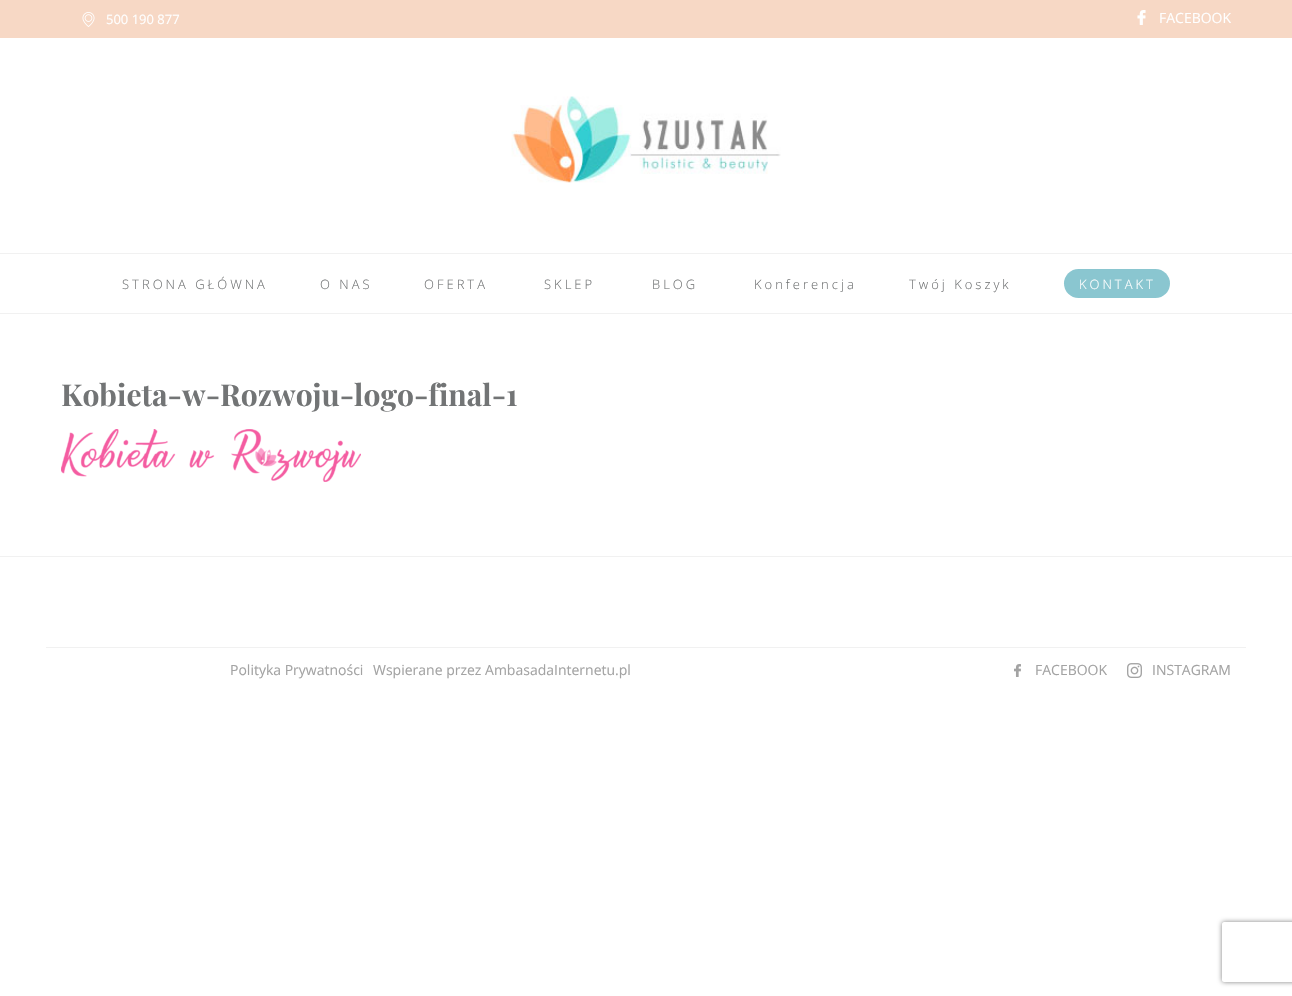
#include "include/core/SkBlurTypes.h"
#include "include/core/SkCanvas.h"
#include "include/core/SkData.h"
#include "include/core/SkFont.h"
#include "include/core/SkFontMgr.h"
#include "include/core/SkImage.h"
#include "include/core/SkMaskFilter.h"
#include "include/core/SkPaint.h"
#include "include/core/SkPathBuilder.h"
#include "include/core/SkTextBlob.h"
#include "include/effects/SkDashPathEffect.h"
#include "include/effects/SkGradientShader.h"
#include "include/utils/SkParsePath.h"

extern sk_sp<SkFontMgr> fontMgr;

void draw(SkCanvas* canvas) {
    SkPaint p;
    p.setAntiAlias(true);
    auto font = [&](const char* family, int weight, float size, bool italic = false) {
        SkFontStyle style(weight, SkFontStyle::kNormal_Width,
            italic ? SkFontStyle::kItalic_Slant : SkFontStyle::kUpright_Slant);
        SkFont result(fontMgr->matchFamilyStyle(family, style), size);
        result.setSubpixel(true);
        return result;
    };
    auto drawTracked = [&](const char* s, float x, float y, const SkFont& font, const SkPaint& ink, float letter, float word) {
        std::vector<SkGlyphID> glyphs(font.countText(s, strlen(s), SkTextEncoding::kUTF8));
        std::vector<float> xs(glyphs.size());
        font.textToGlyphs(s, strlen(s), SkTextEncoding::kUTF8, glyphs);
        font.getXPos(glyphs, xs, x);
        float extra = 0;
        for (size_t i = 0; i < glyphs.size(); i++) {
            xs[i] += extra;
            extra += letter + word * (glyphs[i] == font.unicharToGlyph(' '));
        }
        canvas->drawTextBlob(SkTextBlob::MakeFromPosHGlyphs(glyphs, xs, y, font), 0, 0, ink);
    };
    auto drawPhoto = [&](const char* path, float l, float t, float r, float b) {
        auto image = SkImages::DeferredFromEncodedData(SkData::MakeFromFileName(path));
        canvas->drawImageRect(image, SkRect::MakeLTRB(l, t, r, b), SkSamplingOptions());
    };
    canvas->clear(0xFFFFFFFF);
    p.setColor(0xFFF7D8C5);
    canvas->drawRect(SkRect::MakeLTRB(0, 0, 1292, 38), p);
    drawPhoto("media/1.png", 82, 12, 95, 27);
    auto font1 = font("Open Sans", 400, 13);
    p.setColor(0xFFFFFFFF);
    canvas->drawString("500 190 877", 106, 24, font1, p);
    drawPhoto("media/2.png", 1137, 10, 1146, 25);
    auto font2 = font("Open Sans", 400, 14);
    canvas->drawString("FACEBOOK", 1159, 23, font2, p);
    drawPhoto("media/3.png", 511, 96, 781, 183);
    p.setColor(0xFFF1F1F1);
    canvas->drawRect(SkRect::MakeLTRB(0, 253, 1292, 254), p);
    canvas->drawRect(SkRect::MakeLTRB(0, 313, 1292, 314), p);
    auto font3 = font("Open Sans", 300, 13);
    p.setColor(0xFF727475);
    {
        const struct { const char* s; float x, y; } items[] = {
            {"STRONA GŁÓWNA", 122, 289},
            {"O NAS", 320, 289},
            {"OFERTA", 424, 289},
            {"SKLEP", 544, 289},
            {"BLOG", 652, 289},
            {"Konferencja", 754, 289},
            {"Twój Koszyk", 909, 289},
        };
        for (auto [s, x, y] : items) {
            drawTracked(s, x, y, font3, p, 3, 0);
        }
    }
    p.setColor(0xFF8AC6D0);
    canvas->drawRoundRect(SkRect::MakeLTRB(1064, 269, 1170, 298), 14.5f, 14.5f, p);
    p.setColor(0xFFFFFFFF);
    drawTracked("KONTAKT", 1079, 289, font3, p, 3, 0);
    auto font4 = font("Playfair Display", 700, 30);
    p.setColor(0xFF727475);
    canvas->drawString("Kobieta-w-Rozwoju-logo-final-1", 61, 406, font4, p);
    drawPhoto("media/4.png", 61, 429, 361, 482);
    p.setColor(0xFFF1F1F1);
    canvas->drawRect(SkRect::MakeLTRB(0, 556, 1292, 557), p);
    canvas->drawRect(SkRect::MakeLTRB(46, 647, 1246, 648), p);
    p.setColor(0xFFA3A3A3);
    canvas->drawString("Polityka Prywatności", 230, 675, font2, p);
    canvas->drawString("Wspierane przez AmbasadaInternetu.pl", 373, 675, font2, p);
    drawPhoto("media/5.png", 1014, 664, 1021, 677);
    canvas->drawString("FACEBOOK", 1035, 675, font2, p);
    drawPhoto("media/6.png", 1127, 663, 1142, 678);
    canvas->drawString("INSTAGRAM", 1152, 675, font2, p);
    canvas->save();
    canvas->clipPath(SkPathBuilder(SkPathFillType::kEvenOdd).moveTo(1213, 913).lineTo(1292, 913).lineTo(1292, 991).lineTo(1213, 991).close().moveTo(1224, 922).lineTo(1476, 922).cubicTo(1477, 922, 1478, 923, 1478, 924).lineTo(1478, 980).cubicTo(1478, 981, 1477, 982, 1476, 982).lineTo(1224, 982).cubicTo(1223, 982, 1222, 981, 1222, 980).lineTo(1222, 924).cubicTo(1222, 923, 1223, 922, 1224, 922).close().detach(), true);
    p.setColor(0xFF808080);
    p.setMaskFilter(SkMaskFilter::MakeBlur(kNormal_SkBlurStyle, 2.5f));
    canvas->drawRoundRect(SkRect::MakeLTRB(1222, 922, 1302, 982), 2, 2, p);
    p.setMaskFilter(nullptr);
    canvas->restore();
}
